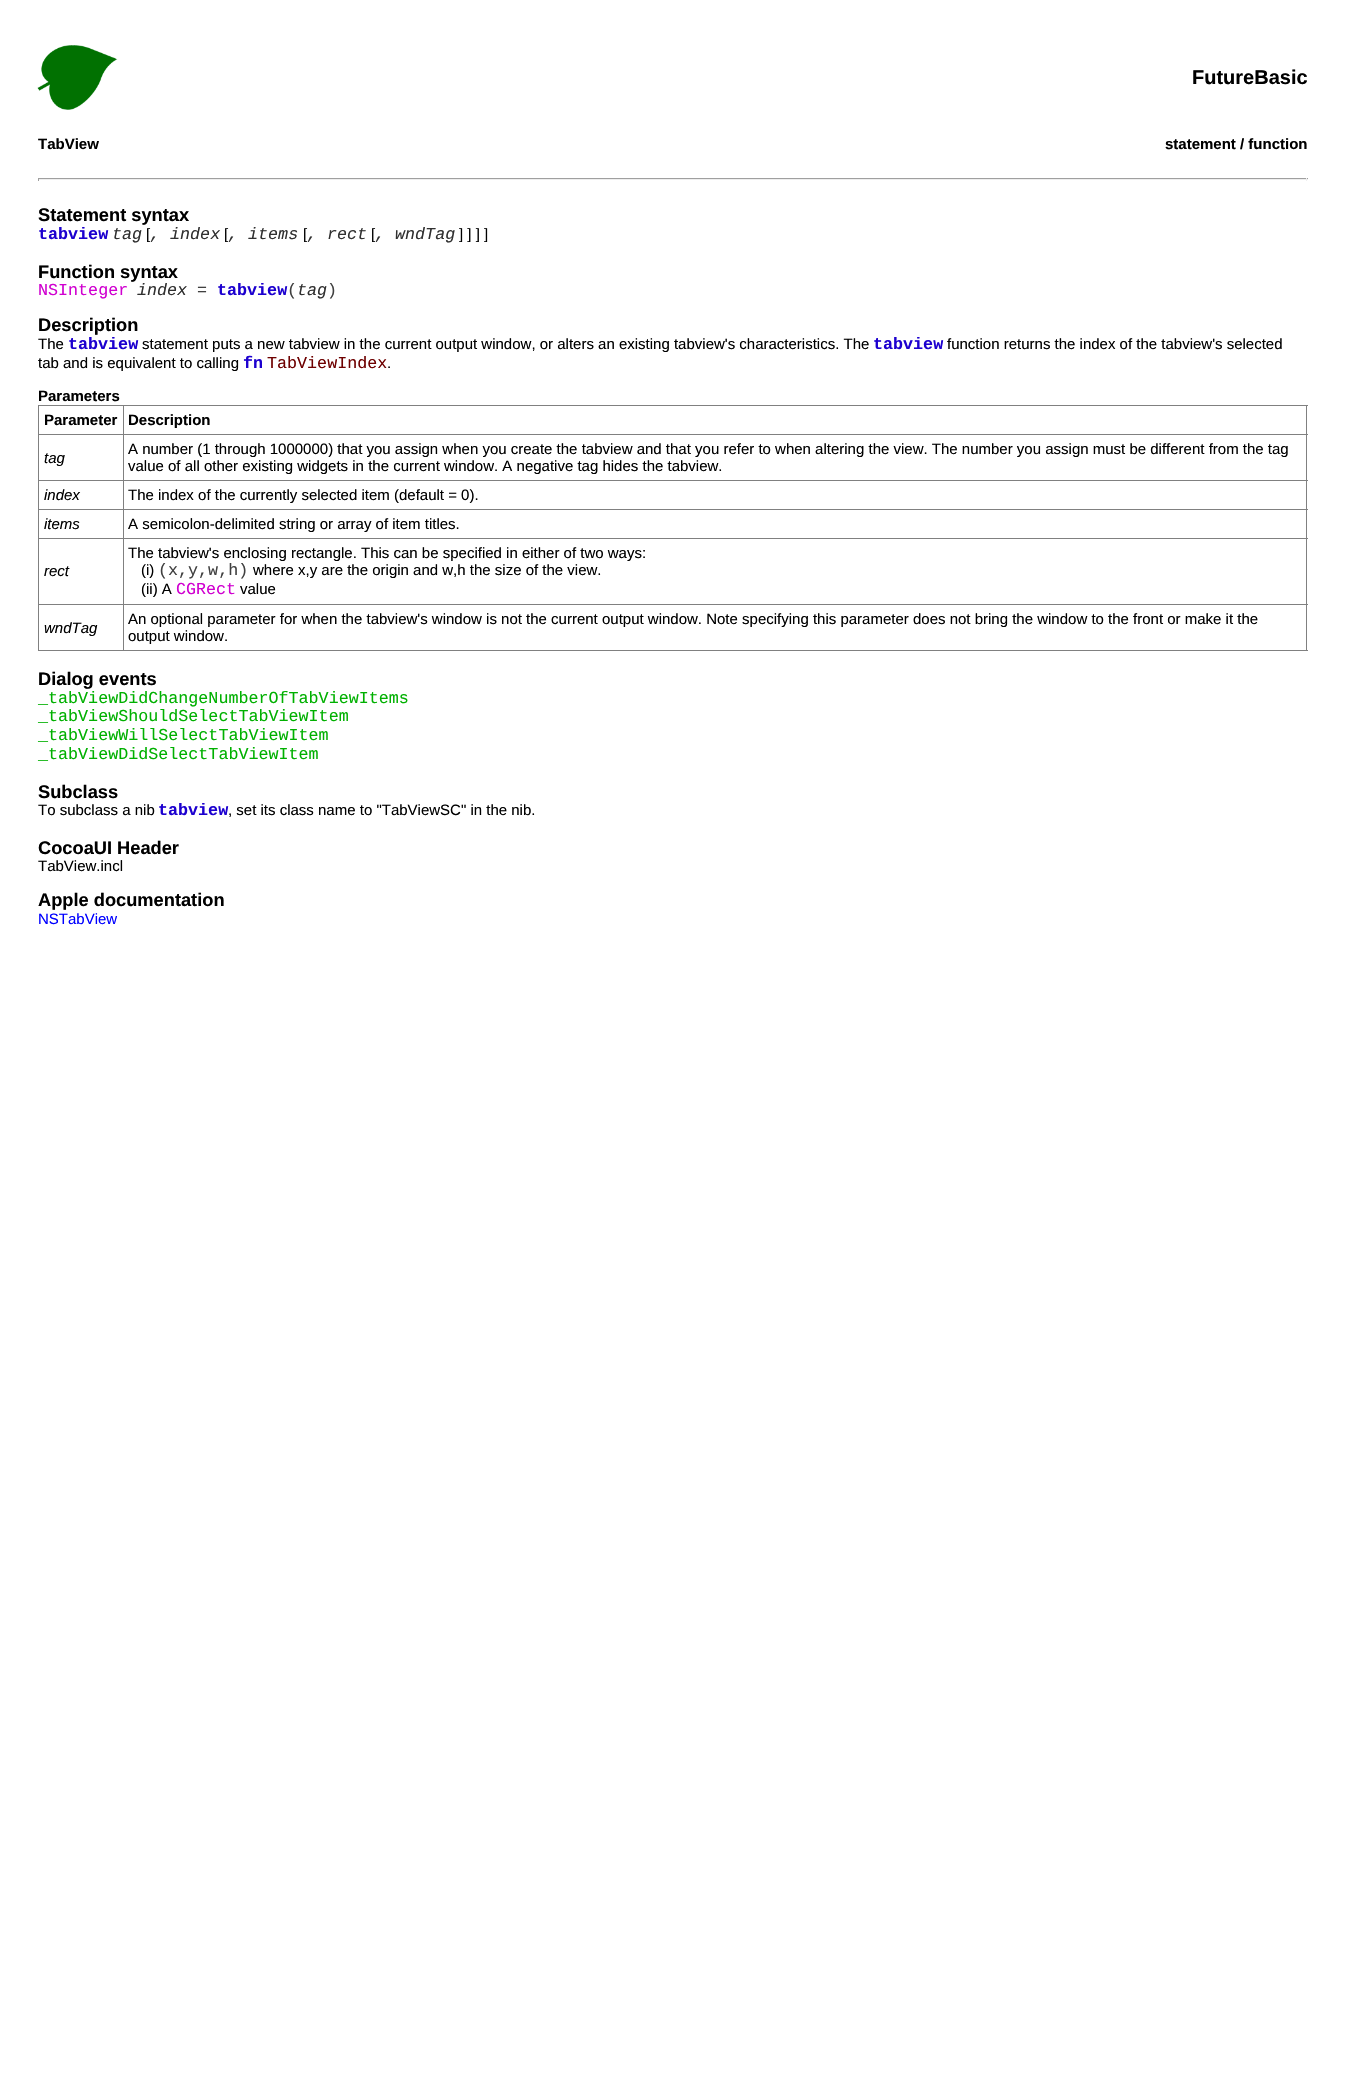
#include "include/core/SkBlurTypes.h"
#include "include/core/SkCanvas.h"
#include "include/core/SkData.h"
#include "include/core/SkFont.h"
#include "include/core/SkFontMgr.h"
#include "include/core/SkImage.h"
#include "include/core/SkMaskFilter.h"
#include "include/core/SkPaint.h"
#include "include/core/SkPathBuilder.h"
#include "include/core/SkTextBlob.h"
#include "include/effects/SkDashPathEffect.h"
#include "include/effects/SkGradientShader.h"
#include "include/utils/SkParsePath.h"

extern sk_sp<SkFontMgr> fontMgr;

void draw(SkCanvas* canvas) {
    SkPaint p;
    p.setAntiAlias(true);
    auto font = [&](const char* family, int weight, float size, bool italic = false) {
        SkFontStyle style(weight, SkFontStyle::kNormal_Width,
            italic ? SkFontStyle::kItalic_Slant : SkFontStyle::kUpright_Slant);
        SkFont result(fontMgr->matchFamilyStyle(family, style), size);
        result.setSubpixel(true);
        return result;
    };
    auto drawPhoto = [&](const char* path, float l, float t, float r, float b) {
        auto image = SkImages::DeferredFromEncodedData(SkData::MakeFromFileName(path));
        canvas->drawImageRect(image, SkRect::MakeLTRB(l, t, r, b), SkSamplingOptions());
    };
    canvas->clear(0xFFFFFFFF);
    drawPhoto("media/1.png", 37, 45, 118, 110);
    auto font1 = font("Liberation Sans", 700, 20);
    p.setColor(0xFF000000);
    canvas->drawString("FutureBasic", 1192, 84, font1, p);
    auto font2 = font("Liberation Sans", 700, 15);
    canvas->drawString("TabView", 38, 149, font2, p);
    canvas->drawString("statement / function", 1165, 149, font2, p);
    {
        const struct { float l, t, r, b; SkColor color; } items[] = {
            {38, 178, 1308, 179, 0xFF9F9F9F},
            {1306, 178, 1307, 181, 0xFFEEEEEE},
            {38, 179, 1308, 180, 0xFFEEEEEE},
            {38, 178, 39, 181, 0xFF9F9F9F},
        };
        for (auto [l, t, r, b, color] : items) {
            p.setColor(color);
            canvas->drawRect(SkRect::MakeLTRB(l, t, r, b), p);
        }
    }
    auto font3 = font("Liberation Sans", 700, 18.25f);
    p.setColor(0xFF000000);
    canvas->drawString("Statement syntax", 38, 221, font3, p);
    auto font4 = font("Liberation Mono", 700, 16.7f);
    p.setColor(0xFF1C00CF);
    canvas->drawString("tabview", 38, 239, font4, p);
    auto font5 = font("Liberation Mono", 400, 16.7f, true);
    p.setColor(0xFF303030);
    canvas->drawString("tag", 112, 239, font5, p);
    auto font6 = font("Liberation Sans", 400, 15);
    p.setColor(0xFF000000);
    canvas->drawString("[", 146, 239, font6, p);
    p.setColor(0xFF303030);
    canvas->drawString(", index", 150, 239, font5, p);
    p.setColor(0xFF000000);
    canvas->drawString("[", 224, 239, font6, p);
    p.setColor(0xFF303030);
    canvas->drawString(", items", 228, 239, font5, p);
    p.setColor(0xFF000000);
    canvas->drawString("[", 303, 239, font6, p);
    p.setColor(0xFF303030);
    canvas->drawString(", rect", 307, 239, font5, p);
    p.setColor(0xFF000000);
    canvas->drawString("[", 371, 239, font6, p);
    p.setColor(0xFF303030);
    canvas->drawString(", wndTag", 375, 239, font5, p);
    p.setColor(0xFF000000);
    canvas->drawString("] ] ] ]", 459, 239, font6, p);
    canvas->drawString("Function syntax", 38, 278, font3, p);
    auto font7 = font("Liberation Mono", 400, 16.7f);
    p.setColor(0xFFD000D0);
    canvas->drawString("NSInteger", 38, 295, font7, p);
    p.setColor(0xFF303030);
    canvas->drawString("index", 137, 295, font5, p);
    p.setColor(0xFF404040);
    canvas->drawString("=", 197, 295, font7, p);
    p.setColor(0xFF1C00CF);
    canvas->drawString("tabview", 217, 295, font4, p);
    p.setColor(0xFF404040);
    canvas->drawString("(", 287, 295, font7, p);
    p.setColor(0xFF303030);
    canvas->drawString("tag", 297, 295, font5, p);
    p.setColor(0xFF404040);
    canvas->drawString(")", 327, 295, font7, p);
    p.setColor(0xFF000000);
    canvas->drawString("Description", 38, 331, font3, p);
    canvas->drawString("The", 38, 349, font6, p);
    p.setColor(0xFF1C00CF);
    canvas->drawString("tabview", 68, 349, font4, p);
    p.setColor(0xFF000000);
    canvas->drawString("statement puts a new tabview in the current output window, or alters an existing tabview's characteristics. The", 142, 349, font6, p);
    p.setColor(0xFF1C00CF);
    canvas->drawString("tabview", 873, 349, font4, p);
    p.setColor(0xFF000000);
    canvas->drawString("function returns the index of the tabview's selected", 947, 349, font6, p);
    canvas->drawString("tab and is equivalent to calling", 38, 368, font6, p);
    p.setColor(0xFF1C00CF);
    canvas->drawString("fn", 243, 368, font4, p);
    p.setColor(0xFF6E0000);
    canvas->drawString("TabViewIndex", 267, 368, font7, p);
    p.setColor(0xFF000000);
    canvas->drawString(".", 387, 368, font6, p);
    canvas->drawString("Parameters", 38, 401, font2, p);
    {
        const struct { float l, t, r, b; SkColor color; } items[] = {
            {38, 405, 1308, 406, 0xFF808080},
            {1306, 405, 1307, 651, 0xFF808080},
            {38, 650, 1308, 651, 0xFF808080},
            {38, 405, 39, 651, 0xFF808080},
        };
        for (auto [l, t, r, b, color] : items) {
            p.setColor(color);
            canvas->drawRect(SkRect::MakeLTRB(l, t, r, b), p);
        }
    }
    p.setColor(0xFF000000);
    canvas->drawString("Parameter", 44, 425, font2, p);
    {
        const struct { float l, t, r, b; SkColor color; } items[] = {
            {123, 434, 1308, 435, 0xFF808080},
            {123, 480, 1308, 481, 0xFF808080},
            {123, 509, 1308, 510, 0xFF808080},
            {123, 538, 1308, 539, 0xFF808080},
            {123, 604, 1308, 605, 0xFF808080},
            {123, 604, 124, 651, 0xFF808080},
            {38, 604, 124, 605, 0xFF808080},
            {123, 538, 124, 605, 0xFF808080},
            {38, 538, 124, 539, 0xFF808080},
            {123, 509, 124, 539, 0xFF808080},
            {38, 509, 124, 510, 0xFF808080},
            {123, 480, 124, 510, 0xFF808080},
            {38, 480, 124, 481, 0xFF808080},
            {123, 434, 124, 481, 0xFF808080},
            {38, 434, 124, 435, 0xFF808080},
            {123, 405, 124, 435, 0xFF808080},
        };
        for (auto [l, t, r, b, color] : items) {
            p.setColor(color);
            canvas->drawRect(SkRect::MakeLTRB(l, t, r, b), p);
        }
    }
    p.setColor(0xFF000000);
    canvas->drawString("Description", 128, 425, font2, p);
    auto font8 = font("Liberation Sans", 400, 15, true);
    canvas->drawString("tag", 44, 463, font8, p);
    canvas->drawString("A number (1 through 1000000) that you assign when you create the tabview and that you refer to when altering the view. The number you assign must be different from the tag", 128, 454, font6, p);
    canvas->drawString("value of all other existing widgets in the current window. A negative tag hides the tabview.", 128, 471, font6, p);
    canvas->drawString("index", 44, 500, font8, p);
    canvas->drawString("The index of the currently selected item (default = 0).", 128, 500, font6, p);
    canvas->drawString("items", 44, 529, font8, p);
    canvas->drawString("A semicolon-delimited string or array of item titles.", 128, 529, font6, p);
    canvas->drawString("rect", 44, 576, font8, p);
    canvas->drawString("The tabview's enclosing rectangle. This can be specified in either of two ways:", 128, 558, font6, p);
    canvas->drawString("(i)", 141, 575, font6, p);
    p.setColor(0xFF404040);
    canvas->drawString("(x,y,w,h)", 158, 575, font7, p);
    p.setColor(0xFF000000);
    canvas->drawString("where x,y are the origin and w,h the size of the view.", 253, 575, font6, p);
    canvas->drawString("(ii) A", 141, 594, font6, p);
    p.setColor(0xFFD000D0);
    canvas->drawString("CGRect", 176, 594, font7, p);
    p.setColor(0xFF000000);
    canvas->drawString("value", 240, 594, font6, p);
    canvas->drawString("wndTag", 44, 633, font8, p);
    canvas->drawString("An optional parameter for when the tabview's window is not the current output window. Note specifying this parameter does not bring the window to the front or make it the", 128, 624, font6, p);
    canvas->drawString("output window.", 128, 641, font6, p);
    canvas->drawString("Dialog events", 38, 685, font3, p);
    p.setColor(0xFF00B000);
    {
        const struct { const char* s; float x, y; } items[] = {
            {"_tabViewDidChangeNumberOfTabViewItems", 38, 703},
            {"_tabViewShouldSelectTabViewItem", 38, 721},
            {"_tabViewWillSelectTabViewItem", 38, 740},
            {"_tabViewDidSelectTabViewItem", 38, 759},
        };
        for (auto [s, x, y] : items) {
            canvas->drawString(s, x, y, font7, p);
        }
    }
    p.setColor(0xFF000000);
    canvas->drawString("Subclass", 38, 798, font3, p);
    canvas->drawString("To subclass a nib", 38, 815, font6, p);
    p.setColor(0xFF1C00CF);
    canvas->drawString("tabview", 158, 815, font4, p);
    p.setColor(0xFF000000);
    canvas->drawString(", set its class name to \"TabViewSC\" in the nib.", 228, 815, font6, p);
    canvas->drawString("CocoaUI Header", 38, 854, font3, p);
    canvas->drawString("TabView.incl", 38, 871, font6, p);
    canvas->drawString("Apple documentation", 38, 906, font3, p);
    p.setColor(0xFF0000FF);
    canvas->drawString("NSTabView", 38, 924, font6, p);
}
